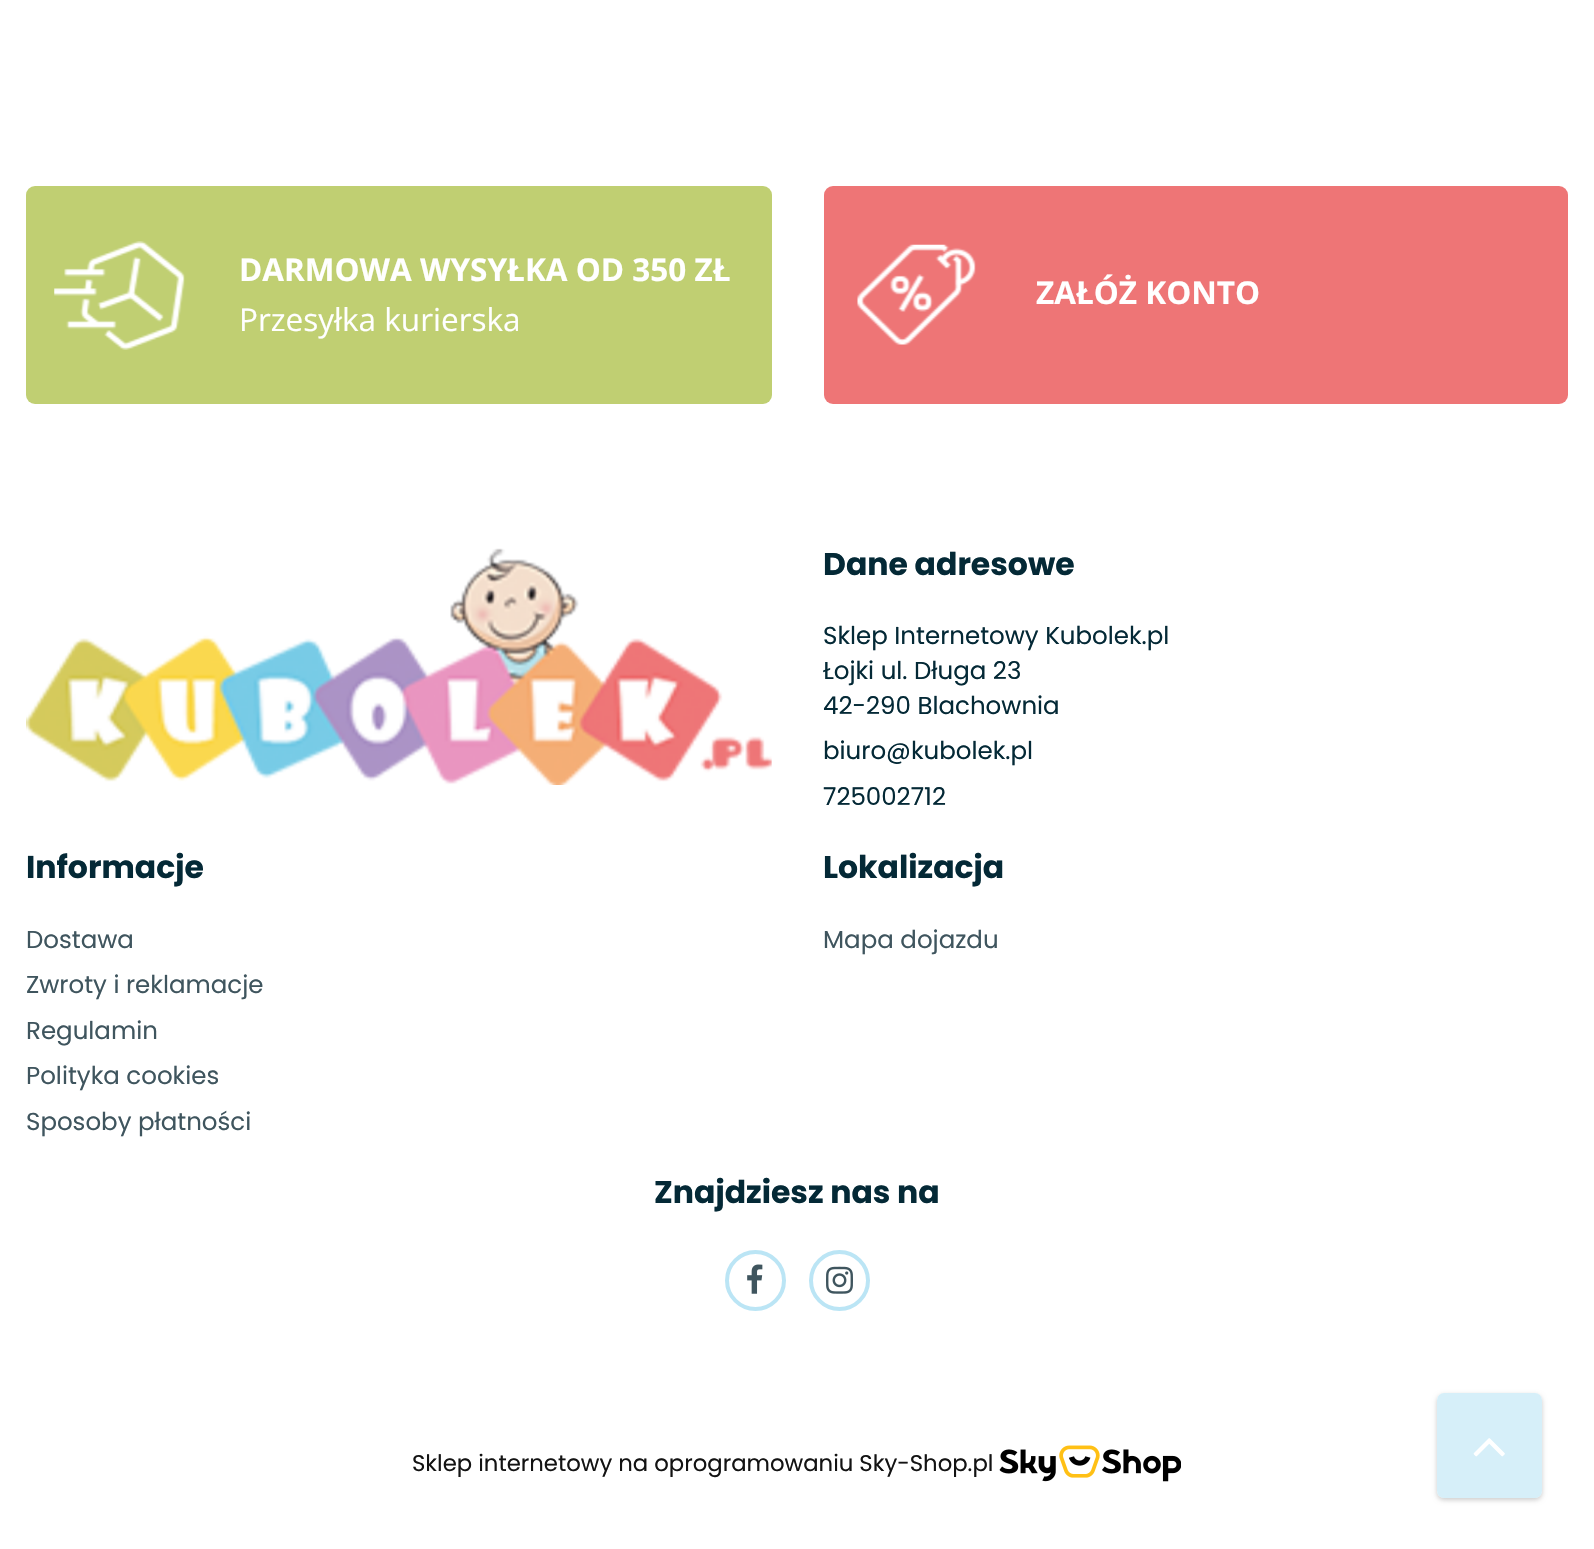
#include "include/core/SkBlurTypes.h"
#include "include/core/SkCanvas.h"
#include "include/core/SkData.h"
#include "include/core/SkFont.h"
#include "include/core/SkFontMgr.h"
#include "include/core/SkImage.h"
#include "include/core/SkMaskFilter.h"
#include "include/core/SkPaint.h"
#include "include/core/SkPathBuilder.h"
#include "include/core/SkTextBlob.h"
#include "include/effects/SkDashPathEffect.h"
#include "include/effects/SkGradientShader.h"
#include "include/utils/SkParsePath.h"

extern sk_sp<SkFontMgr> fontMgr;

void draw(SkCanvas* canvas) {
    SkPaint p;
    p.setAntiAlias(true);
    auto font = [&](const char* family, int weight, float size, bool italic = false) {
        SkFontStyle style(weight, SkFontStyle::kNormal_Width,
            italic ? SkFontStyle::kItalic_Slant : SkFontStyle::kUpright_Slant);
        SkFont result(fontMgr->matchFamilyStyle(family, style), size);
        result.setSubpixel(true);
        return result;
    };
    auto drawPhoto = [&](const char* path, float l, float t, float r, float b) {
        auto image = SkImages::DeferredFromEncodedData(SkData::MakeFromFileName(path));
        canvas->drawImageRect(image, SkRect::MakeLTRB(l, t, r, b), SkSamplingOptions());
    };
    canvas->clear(0xFFFFFFFF);
    p.setColor(0xFFC0CF72);
    canvas->drawRoundRect(SkRect::MakeLTRB(26, 186, 772, 404), 9, 9, p);
    drawPhoto("media/1.png", 54, 241, 185, 350);
    auto font1 = font("Open Sans", 700, 31.5f);
    p.setColor(0xFFFFFFFF);
    canvas->drawString("DARMOWA WYSYŁKA OD 350 ZŁ", 239, 281, font1, p);
    auto font2 = font("Open Sans", 400, 31.5f);
    canvas->drawString("Przesyłka kurierska", 239, 331, font2, p);
    p.setColor(0xFFEE7576);
    canvas->drawRoundRect(SkRect::MakeLTRB(824, 186, 1568, 404), 9, 9, p);
    drawPhoto("media/2.png", 857, 244, 976, 345);
    p.setColor(0xFFFFFFFF);
    canvas->drawString("ZAŁÓŻ KONTO", 1036, 304, font1, p);
    drawPhoto("media/3.png", 26, 548, 772, 785);
    auto font3 = font("Poppins", 700, 31.5f);
    p.setColor(0xFF042936);
    canvas->drawString("Dane adresowe", 823, 575, font3, p);
    auto font4 = font("Poppins", 400, 24.5f);
    {
        const struct { const char* s; float x, y; } items[] = {
            {"Sklep Internetowy Kubolek.pl", 823, 644},
            {"Łojki ul. Długa 23", 823, 679},
            {"42-290 Blachownia", 823, 714},
            {"biuro@kubolek.pl", 823, 759},
            {"725002712", 823, 805},
        };
        for (auto [s, x, y] : items) {
            canvas->drawString(s, x, y, font4, p);
        }
    }
    canvas->drawString("Informacje", 26, 878, font3, p);
    p.setColor(0xFF3F555E);
    {
        const struct { const char* s; float x, y; } items[] = {
            {"Dostawa", 26, 948},
            {"Zwroty i reklamacje", 26, 993},
            {"Regulamin", 26, 1039},
            {"Polityka cookies", 26, 1084},
            {"Sposoby płatności", 26, 1130},
        };
        for (auto [s, x, y] : items) {
            canvas->drawString(s, x, y, font4, p);
        }
    }
    p.setColor(0xFF042936);
    canvas->drawString("Lokalizacja", 823, 878, font3, p);
    p.setColor(0xFF3F555E);
    canvas->drawString("Mapa dojazdu", 823, 948, font4, p);
    p.setColor(0xFF042936);
    canvas->drawString("Znajdziesz nas na", 654, 1203, font3, p);
    p.setStyle(SkPaint::kStroke_Style);
    p.setStrokeWidth(4);
    p.setColor(0xFFBBE5F5);
    canvas->drawCircle(755.5f, 1280.5f, 28.5f, p);
    drawPhoto("media/4.png", 747, 1264, 763, 1294);
    canvas->drawCircle(839.5f, 1280.5f, 28.5f, p);
    drawPhoto("media/5.png", 826, 1266, 853, 1294);
    auto font5 = font("Poppins", 400, 22.75f);
    p.setStyle(SkPaint::kFill_Style);
    p.setColor(0xFF131313);
    canvas->drawString("Sklep internetowy na oprogramowaniu Sky-Shop.pl", 412, 1471, font5, p);
    drawPhoto("media/6.png", 999, 1445, 1181, 1482);
    canvas->save();
    canvas->clipPath(SkPathBuilder(SkPathFillType::kEvenOdd).moveTo(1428, 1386).lineTo(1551, 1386).lineTo(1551, 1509).lineTo(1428, 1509).close().moveTo(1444, 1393).lineTo(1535, 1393).cubicTo(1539, 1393, 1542, 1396, 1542, 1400).lineTo(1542, 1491).cubicTo(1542, 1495, 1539, 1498, 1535, 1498).lineTo(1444, 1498).cubicTo(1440, 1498, 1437, 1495, 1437, 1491).lineTo(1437, 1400).cubicTo(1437, 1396, 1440, 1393, 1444, 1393).close().detach(), true);
    p.setColor(0x33000000);
    p.setMaskFilter(SkMaskFilter::MakeBlur(kNormal_SkBlurStyle, 2.5f));
    canvas->drawRoundRect(SkRect::MakeLTRB(1437, 1395, 1542, 1500), 7, 7, p);
    p.setMaskFilter(nullptr);
    canvas->restore();
    p.setColor(0x99BBE5F5);
    canvas->drawRoundRect(SkRect::MakeLTRB(1437, 1393, 1542, 1498), 7, 7, p);
    drawPhoto("media/7.png", 1473, 1438, 1505, 1457);
}
